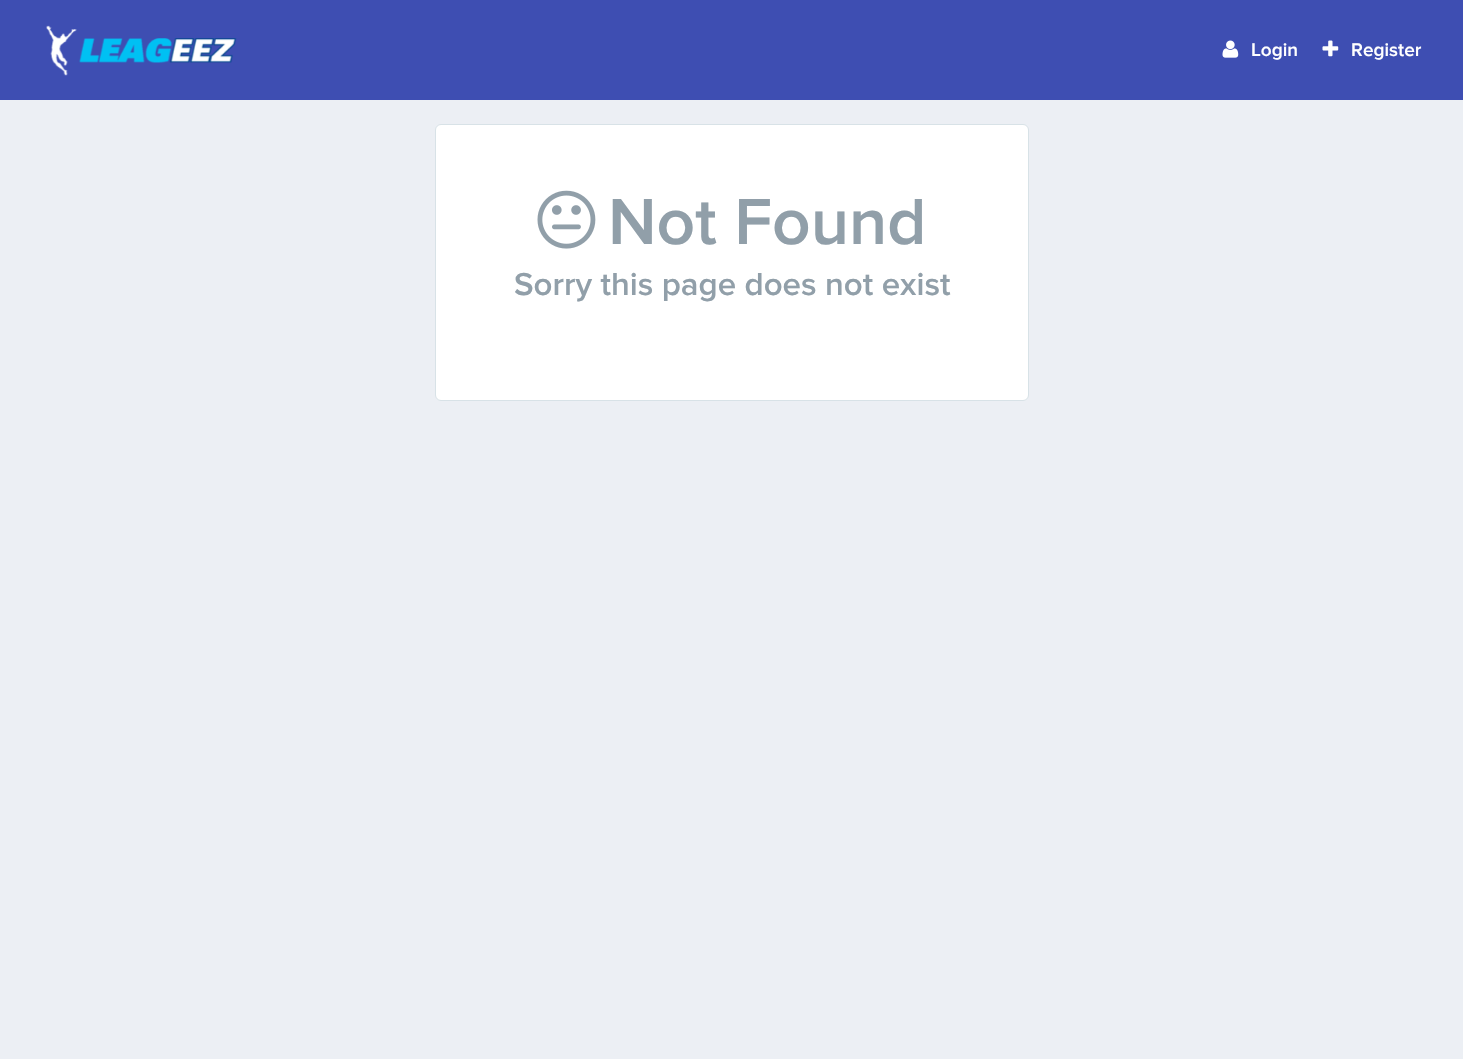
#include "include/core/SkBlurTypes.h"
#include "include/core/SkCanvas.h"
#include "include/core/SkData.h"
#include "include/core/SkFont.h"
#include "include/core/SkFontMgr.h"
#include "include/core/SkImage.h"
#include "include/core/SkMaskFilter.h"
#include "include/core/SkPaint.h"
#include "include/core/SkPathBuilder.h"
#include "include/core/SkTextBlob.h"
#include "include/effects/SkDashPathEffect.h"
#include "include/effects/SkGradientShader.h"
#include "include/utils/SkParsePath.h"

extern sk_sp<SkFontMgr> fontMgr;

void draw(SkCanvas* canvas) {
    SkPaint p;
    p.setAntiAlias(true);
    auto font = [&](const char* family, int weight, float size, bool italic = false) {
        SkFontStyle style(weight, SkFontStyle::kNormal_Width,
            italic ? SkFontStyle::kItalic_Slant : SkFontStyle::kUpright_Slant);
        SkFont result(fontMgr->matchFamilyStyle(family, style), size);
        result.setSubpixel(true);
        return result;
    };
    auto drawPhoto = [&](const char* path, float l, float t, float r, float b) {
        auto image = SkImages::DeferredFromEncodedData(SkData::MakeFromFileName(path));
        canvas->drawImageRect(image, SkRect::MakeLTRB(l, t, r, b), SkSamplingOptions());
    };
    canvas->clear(0xFFECEFF4);
    p.setColor(0xFF3E4EB2);
    canvas->drawRect(SkRect::MakeLTRB(0, 0, 1463, 100), p);
    drawPhoto("media/1.png", 46, 25, 237, 76);
    drawPhoto("media/2.png", 1222, 40, 1239, 58);
    auto font1 = font("Proxima Nova", 600, 19);
    p.setColor(0xFFFFFFFF);
    canvas->drawString("Login", 1251, 56, font1, p);
    drawPhoto("media/3.png", 1322, 40, 1339, 57);
    canvas->drawString("Register", 1351, 56, font1, p);
    canvas->drawRoundRect(SkRect::MakeLTRB(435.5f, 124.5f, 1028.5f, 400.5f), 5.5f, 5.5f, p);
    p.setStyle(SkPaint::kStroke_Style);
    p.setStrokeWidth(1);
    p.setColor(0xFFD8E2E7);
    canvas->drawRoundRect(SkRect::MakeLTRB(435.5f, 124.5f, 1028.5f, 400.5f), 5.5f, 5.5f, p);
    drawPhoto("media/4.png", 537, 190, 596, 249);
    auto font2 = font("Proxima Nova", 600, 67.5f);
    p.setStyle(SkPaint::kFill_Style);
    p.setColor(0xFF919FA9);
    canvas->drawString("Not Found", 608, 244, font2, p);
    auto font3 = font("Proxima Nova", 600, 33);
    canvas->drawString("Sorry this page does not exist", 514, 295, font3, p);
}
